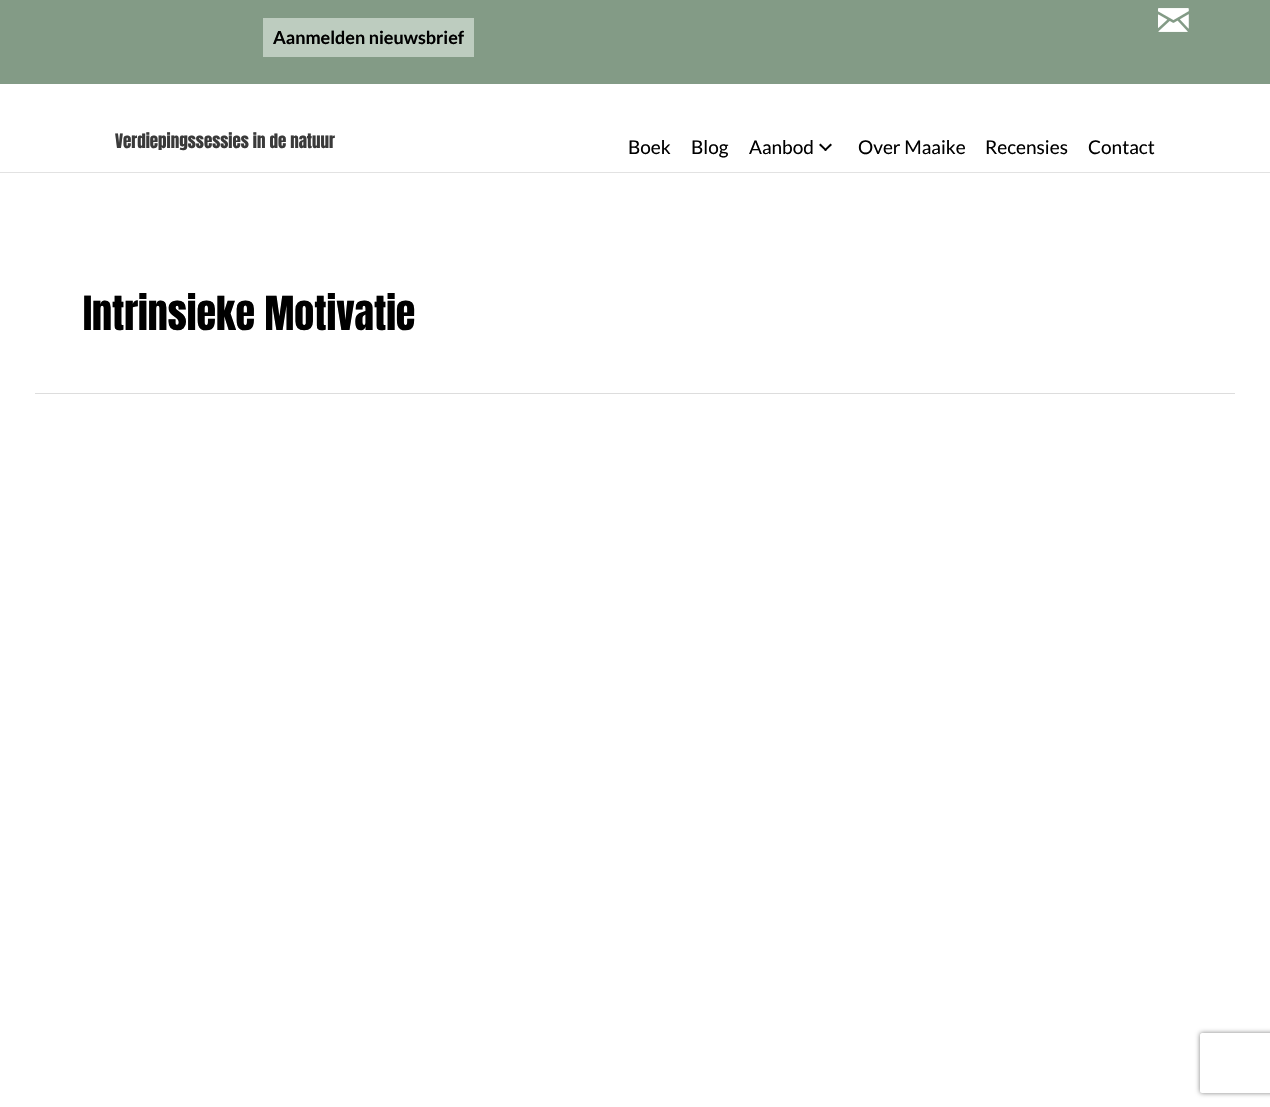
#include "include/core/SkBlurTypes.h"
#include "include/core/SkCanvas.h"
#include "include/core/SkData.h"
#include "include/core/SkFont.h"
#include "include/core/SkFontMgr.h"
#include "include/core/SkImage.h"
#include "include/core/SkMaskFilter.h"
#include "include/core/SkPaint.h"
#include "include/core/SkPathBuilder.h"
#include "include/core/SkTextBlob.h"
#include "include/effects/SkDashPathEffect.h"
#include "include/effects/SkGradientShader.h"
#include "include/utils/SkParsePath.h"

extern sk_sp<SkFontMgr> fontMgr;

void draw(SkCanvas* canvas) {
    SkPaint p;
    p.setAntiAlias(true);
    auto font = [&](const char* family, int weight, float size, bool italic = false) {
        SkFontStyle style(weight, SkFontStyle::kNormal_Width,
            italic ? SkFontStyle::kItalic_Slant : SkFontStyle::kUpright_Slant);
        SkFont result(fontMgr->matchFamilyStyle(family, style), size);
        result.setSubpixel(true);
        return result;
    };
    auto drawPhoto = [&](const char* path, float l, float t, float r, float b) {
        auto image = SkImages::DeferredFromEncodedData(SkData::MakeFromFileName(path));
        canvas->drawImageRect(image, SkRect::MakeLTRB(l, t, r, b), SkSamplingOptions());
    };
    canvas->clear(0xFFFFFFFF);
    p.setColor(0xFF839B86);
    canvas->drawRect(SkRect::MakeLTRB(0, 0, 1270, 84), p);
    drawPhoto("media/1.png", 1158, 8, 1189, 32);
    p.setColor(0xFFBDCCBF);
    canvas->drawRect(SkRect::MakeLTRB(263, 18, 474, 57), p);
    auto font1 = font("Lato", 700, 18);
    p.setColor(0xFF000000);
    canvas->drawString("Aanmelden nieuwsbrief", 273, 44, font1, p);
    p.setColor(0xFFE2E2E2);
    canvas->drawRect(SkRect::MakeLTRB(0, 172, 1270, 173), p);
    auto font2 = font("Anton", 400, 17);
    p.setColor(0xFF3A3A3A);
    canvas->drawString("Verdiepingssessies in de natuur", 115, 148, font2, p);
    auto font3 = font("Lato", 400, 19);
    p.setColor(0xFF000000);
    {
        const struct { const char* s; float x, y; } items[] = {
            {"Boek", 628, 154},
            {"Blog", 691, 154},
            {"Aanbod", 749, 154},
        };
        for (auto [s, x, y] : items) {
            canvas->drawString(s, x, y, font3, p);
        }
    }
    canvas->drawPath(SkPathBuilder().moveTo(830.5f, 143.5f).lineTo(832, 145).lineTo(825.5f, 151).lineTo(824, 150).close().detach(), p);
    canvas->drawPath(SkPathBuilder().moveTo(820.5f, 143.5f).lineTo(827, 150).lineTo(825.5f, 151).lineTo(819, 145).close().detach(), p);
    {
        const struct { const char* s; float x, y; } items[] = {
            {"Over Maaike", 858, 154},
            {"Recensies", 985, 154},
            {"Contact", 1088, 154},
        };
        for (auto [s, x, y] : items) {
            canvas->drawString(s, x, y, font3, p);
        }
    }
    p.setColor(0xFFDDDDDD);
    canvas->drawRect(SkRect::MakeLTRB(35, 393, 1235, 394), p);
    auto font4 = font("Anton", 400, 40);
    p.setColor(0xFF000000);
    canvas->drawString("Intrinsieke Motivatie", 83, 330, font4, p);
    canvas->save();
    canvas->clipPath(SkPathBuilder(SkPathFillType::kEvenOdd).moveTo(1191, 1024).lineTo(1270, 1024).lineTo(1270, 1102).lineTo(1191, 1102).close().moveTo(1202, 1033).lineTo(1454, 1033).cubicTo(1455, 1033, 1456, 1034, 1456, 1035).lineTo(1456, 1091).cubicTo(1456, 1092, 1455, 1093, 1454, 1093).lineTo(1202, 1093).cubicTo(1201, 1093, 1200, 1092, 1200, 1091).lineTo(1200, 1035).cubicTo(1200, 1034, 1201, 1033, 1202, 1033).close().detach(), true);
    p.setColor(0xFF808080);
    p.setMaskFilter(SkMaskFilter::MakeBlur(kNormal_SkBlurStyle, 2.5f));
    canvas->drawRoundRect(SkRect::MakeLTRB(1200, 1033, 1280, 1093), 2, 2, p);
    p.setMaskFilter(nullptr);
    canvas->restore();
}
